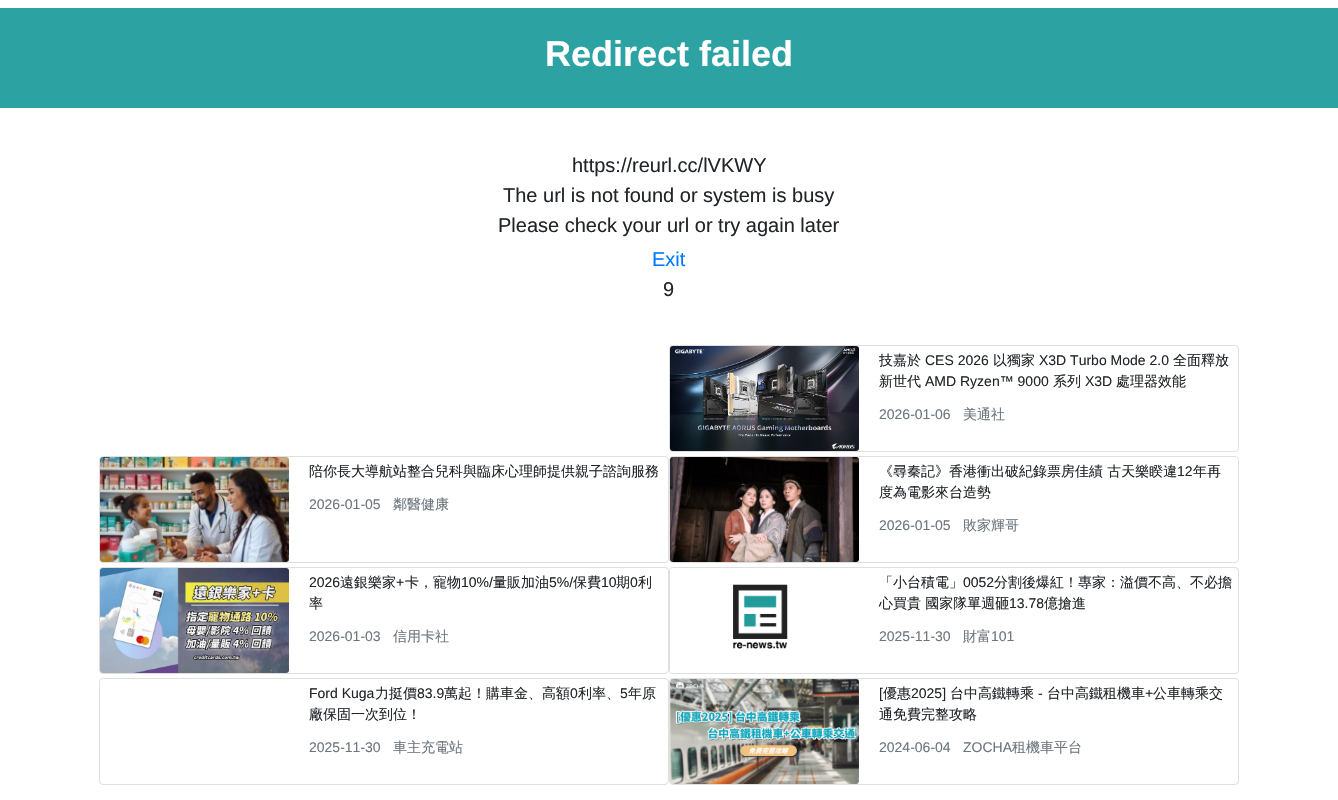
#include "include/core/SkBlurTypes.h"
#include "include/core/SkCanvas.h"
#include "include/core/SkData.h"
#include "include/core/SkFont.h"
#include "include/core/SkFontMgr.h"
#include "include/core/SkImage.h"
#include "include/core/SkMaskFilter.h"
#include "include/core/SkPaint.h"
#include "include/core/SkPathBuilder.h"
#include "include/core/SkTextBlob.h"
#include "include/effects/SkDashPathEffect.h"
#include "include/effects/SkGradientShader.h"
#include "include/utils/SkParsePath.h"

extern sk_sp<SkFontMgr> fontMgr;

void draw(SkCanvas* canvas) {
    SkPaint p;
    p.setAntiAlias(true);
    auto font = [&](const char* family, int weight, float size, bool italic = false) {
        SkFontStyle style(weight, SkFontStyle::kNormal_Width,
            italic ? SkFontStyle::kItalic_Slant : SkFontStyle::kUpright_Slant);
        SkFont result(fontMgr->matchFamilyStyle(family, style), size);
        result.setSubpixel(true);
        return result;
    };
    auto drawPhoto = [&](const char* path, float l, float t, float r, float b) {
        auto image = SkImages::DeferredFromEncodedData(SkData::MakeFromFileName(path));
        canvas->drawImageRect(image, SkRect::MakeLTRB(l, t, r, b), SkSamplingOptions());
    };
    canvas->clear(0xFFFFFFFF);
    p.setColor(0xFF2CA2A2);
    canvas->drawRect(SkRect::MakeLTRB(0, 8, 1338, 108), p);
    auto font1 = font("Liberation Sans", 700, 36);
    p.setColor(0xFFFFFFFF);
    canvas->drawString("Redirect failed", 545, 66, font1, p);
    auto font2 = font("Liberation Sans", 400, 20);
    p.setColor(0xFF212529);
    {
        const struct { const char* s; float x, y; } items[] = {
            {"https://reurl.cc/lVKWY", 572, 172},
            {"The url is not found or system is busy", 503, 202},
            {"Please check your url or try again later", 498, 232},
        };
        for (auto [s, x, y] : items) {
            canvas->drawString(s, x, y, font2, p);
        }
    }
    p.setColor(0xFF007BFF);
    canvas->drawString("Exit", 652, 266, font2, p);
    p.setColor(0xFF212529);
    canvas->drawString("9", 663, 296, font2, p);
    p.setStyle(SkPaint::kStroke_Style);
    p.setStrokeWidth(1);
    p.setColor(0xFFDFDFDF);
    canvas->drawRoundRect(SkRect::MakeLTRB(669.5f, 345.5f, 1238.5f, 451.5f), 3.5f, 3.5f, p);
    drawPhoto("media/1.png", 670, 346, 859, 451);
    auto font3 = font("WenQuanYi Zen Hei", 500, 14);
    p.setStyle(SkPaint::kFill_Style);
    p.setColor(0xFF212529);
    canvas->drawString("技嘉於", 879, 365, font3, p);
    auto font4 = font("Liberation Sans", 400, 14);
    canvas->drawString("CES 2026", 925, 365, font4, p);
    canvas->drawString("以獨家", 993, 365, font3, p);
    canvas->drawString("X3D Turbo Mode 2.0", 1039, 365, font4, p);
    canvas->drawString("全面釋放", 1173, 365, font3, p);
    canvas->drawString("新世代", 879, 386, font3, p);
    canvas->drawString("AMD Ryzen™ 9000", 925, 386, font4, p);
    canvas->drawString("系列", 1053, 386, font3, p);
    canvas->drawString("X3D", 1085, 386, font4, p);
    canvas->drawString("處理器效能", 1116, 386, font3, p);
    p.setColor(0xFF6C757D);
    canvas->drawString("2026-01-06", 879, 419, font4, p);
    canvas->drawString("美通社", 963, 419, font3, p);
    p.setStyle(SkPaint::kStroke_Style);
    p.setColor(0xFFDFDFDF);
    canvas->drawRoundRect(SkRect::MakeLTRB(99.5f, 456.5f, 668.5f, 562.5f), 3.5f, 3.5f, p);
    drawPhoto("media/2.png", 100, 457, 289, 562);
    p.setStyle(SkPaint::kFill_Style);
    p.setColor(0xFF212529);
    canvas->drawString("陪你長大導航站整合兒科與臨床心理師提供親子諮詢服務", 309, 476, font3, p);
    p.setColor(0xFF6C757D);
    canvas->drawString("2026-01-05", 309, 509, font4, p);
    canvas->drawString("鄰醫健康", 393, 509, font3, p);
    p.setStyle(SkPaint::kStroke_Style);
    p.setColor(0xFFDFDFDF);
    canvas->drawRoundRect(SkRect::MakeLTRB(669.5f, 456.5f, 1238.5f, 562.5f), 3.5f, 3.5f, p);
    drawPhoto("media/3.png", 670, 457, 859, 562);
    p.setStyle(SkPaint::kFill_Style);
    p.setColor(0xFF212529);
    canvas->drawString("《尋秦記》香港衝出破紀錄票房佳績 古天樂睽違", 879, 476, font3, p);
    canvas->drawString("12", 1177, 476, font4, p);
    canvas->drawString("年再", 1193, 476, font3, p);
    canvas->drawString("度為電影來台造勢", 879, 497, font3, p);
    p.setColor(0xFF6C757D);
    canvas->drawString("2026-01-05", 879, 530, font4, p);
    canvas->drawString("敗家輝哥", 963, 530, font3, p);
    p.setStyle(SkPaint::kStroke_Style);
    p.setColor(0xFFDFDFDF);
    canvas->drawRoundRect(SkRect::MakeLTRB(99.5f, 567.5f, 668.5f, 673.5f), 3.5f, 3.5f, p);
    drawPhoto("media/4.png", 100, 568, 289, 673);
    p.setStyle(SkPaint::kFill_Style);
    p.setColor(0xFF212529);
    canvas->drawString("2026", 309, 587, font4, p);
    canvas->drawString("遠銀樂家", 340, 587, font3, p);
    canvas->drawString("+", 396, 587, font4, p);
    canvas->drawString("卡，寵物", 405, 587, font3, p);
    canvas->drawString("10%/", 461, 587, font4, p);
    canvas->drawString("量販加油", 493, 587, font3, p);
    canvas->drawString("5%/", 549, 587, font4, p);
    canvas->drawString("保費", 573, 587, font3, p);
    canvas->drawString("10", 601, 587, font4, p);
    canvas->drawString("期", 616, 587, font3, p);
    canvas->drawString("0", 630, 587, font4, p);
    canvas->drawString("利", 638, 587, font3, p);
    canvas->drawString("率", 309, 608, font3, p);
    p.setColor(0xFF6C757D);
    canvas->drawString("2026-01-03", 309, 641, font4, p);
    canvas->drawString("信用卡社", 393, 641, font3, p);
    p.setStyle(SkPaint::kStroke_Style);
    p.setColor(0xFFDFDFDF);
    canvas->drawRoundRect(SkRect::MakeLTRB(669.5f, 567.5f, 1238.5f, 673.5f), 3.5f, 3.5f, p);
    drawPhoto("media/5.png", 670, 568, 788, 673);
    p.setStyle(SkPaint::kFill_Style);
    p.setColor(0xFF212529);
    canvas->drawString("「小台積電」", 879, 587, font3, p);
    canvas->drawString("0052", 963, 587, font4, p);
    canvas->drawString("分割後爆紅！專家：溢價不高、不必擔", 994, 587, font3, p);
    canvas->drawString("心買貴 國家隊單週砸", 879, 608, font3, p);
    canvas->drawString("13.78", 1009, 608, font4, p);
    canvas->drawString("億搶進", 1044, 608, font3, p);
    p.setColor(0xFF6C757D);
    canvas->drawString("2025-11-30", 879, 641, font4, p);
    canvas->drawString("財富", 963, 641, font3, p);
    canvas->drawString("101", 991, 641, font4, p);
    p.setStyle(SkPaint::kStroke_Style);
    p.setColor(0xFFDFDFDF);
    canvas->drawRoundRect(SkRect::MakeLTRB(99.5f, 678.5f, 668.5f, 784.5f), 3.5f, 3.5f, p);
    p.setStyle(SkPaint::kFill_Style);
    p.setColor(0xFF212529);
    canvas->drawString("Ford Kuga", 309, 698, font4, p);
    canvas->drawString("力挺價", 375, 698, font3, p);
    canvas->drawString("83.9", 417, 698, font4, p);
    canvas->drawString("萬起！購車金、高額", 444, 698, font3, p);
    canvas->drawString("0", 570, 698, font4, p);
    canvas->drawString("利率、", 578, 698, font3, p);
    canvas->drawString("5", 620, 698, font4, p);
    canvas->drawString("年原", 628, 698, font3, p);
    canvas->drawString("廠保固一次到位！", 309, 719, font3, p);
    p.setColor(0xFF6C757D);
    canvas->drawString("2025-11-30", 309, 752, font4, p);
    canvas->drawString("車主充電站", 393, 752, font3, p);
    p.setStyle(SkPaint::kStroke_Style);
    p.setColor(0xFFDFDFDF);
    canvas->drawRoundRect(SkRect::MakeLTRB(669.5f, 678.5f, 1238.5f, 784.5f), 3.5f, 3.5f, p);
    drawPhoto("media/6.png", 670, 679, 859, 784);
    p.setStyle(SkPaint::kFill_Style);
    p.setColor(0xFF212529);
    canvas->drawString("[", 879, 698, font4, p);
    canvas->drawString("優惠", 883, 698, font3, p);
    canvas->drawString("2025]", 911, 698, font4, p);
    canvas->drawString("台中高鐵轉乘", 950, 698, font3, p);
    canvas->drawString("-", 1038, 698, font4, p);
    canvas->drawString("台中高鐵租機車", 1047, 698, font3, p);
    canvas->drawString("+", 1145, 698, font4, p);
    canvas->drawString("公車轉乘交", 1153, 698, font3, p);
    canvas->drawString("通免費完整攻略", 879, 719, font3, p);
    p.setColor(0xFF6C757D);
    canvas->drawString("2024-06-04", 879, 752, font4, p);
    canvas->drawString("ZOCHA", 963, 752, font4, p);
    canvas->drawString("租機車平台", 1012, 752, font3, p);
}
